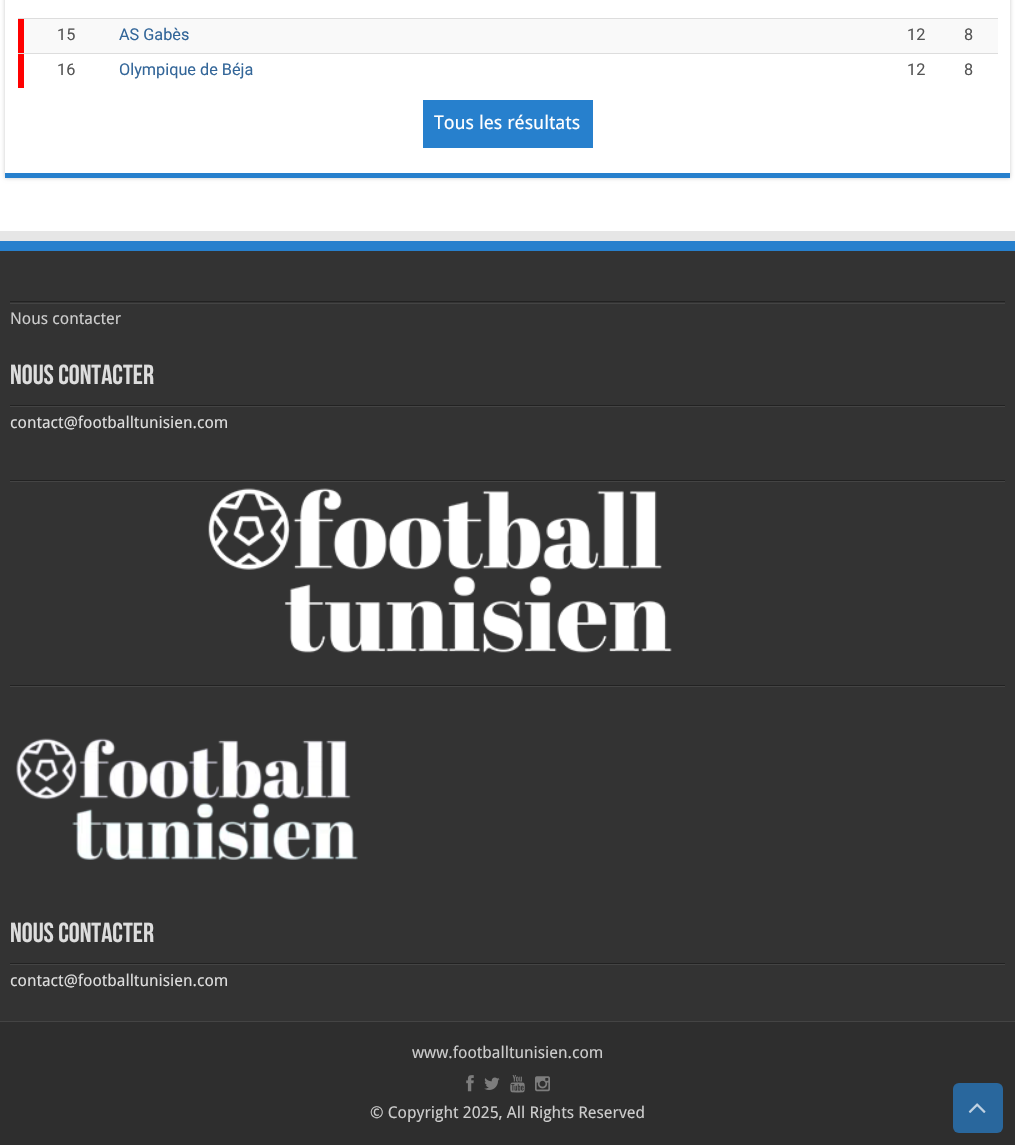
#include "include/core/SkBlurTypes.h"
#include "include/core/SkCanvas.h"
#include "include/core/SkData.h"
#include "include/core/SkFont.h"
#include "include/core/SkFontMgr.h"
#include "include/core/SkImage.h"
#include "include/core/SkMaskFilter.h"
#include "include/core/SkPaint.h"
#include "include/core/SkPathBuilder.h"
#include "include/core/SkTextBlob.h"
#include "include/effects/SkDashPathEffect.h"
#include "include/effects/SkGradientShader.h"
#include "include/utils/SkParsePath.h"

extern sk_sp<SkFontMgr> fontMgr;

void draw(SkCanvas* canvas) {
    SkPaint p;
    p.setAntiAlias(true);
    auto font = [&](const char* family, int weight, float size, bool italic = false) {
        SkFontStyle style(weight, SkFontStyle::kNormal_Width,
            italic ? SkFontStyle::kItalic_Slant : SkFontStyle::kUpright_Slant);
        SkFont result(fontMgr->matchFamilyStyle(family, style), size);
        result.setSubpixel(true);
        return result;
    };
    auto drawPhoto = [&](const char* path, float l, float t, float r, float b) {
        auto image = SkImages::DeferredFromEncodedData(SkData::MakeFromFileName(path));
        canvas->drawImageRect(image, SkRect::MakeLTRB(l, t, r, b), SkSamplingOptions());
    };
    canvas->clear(0xFFFFFFFF);
    p.setColor(0xFFCACACA);
    p.setMaskFilter(SkMaskFilter::MakeBlur(kNormal_SkBlurStyle, 2));
    canvas->drawRect(SkRect::MakeLTRB(5, -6, 1010, 178), p);
    p.setMaskFilter(nullptr);
    {
        const struct { float l, t, r, b; SkColor color; } items[] = {
            {5, 0, 1010, 173, 0xFFFFFFFF},
            {5, 173, 1010, 178, 0xFF2780CD},
            {24, 19, 998, 53, 0xFFF9F9F9},
            {18, 19, 24, 53, 0xFFFF0000},
        };
        for (auto [l, t, r, b, color] : items) {
            p.setColor(color);
            canvas->drawRect(SkRect::MakeLTRB(l, t, r, b), p);
        }
    }
    auto font1 = font("Roboto", 400, 16.25f);
    p.setColor(0xFF555555);
    canvas->drawString("15", 57, 40, font1, p);
    p.setColor(0xFF336699);
    canvas->drawString("AS Gabès", 119, 40, font1, p);
    p.setColor(0xFF555555);
    canvas->drawString("12", 907, 40, font1, p);
    p.setColor(0xFFDDDDDD);
    canvas->drawRect(SkRect::MakeLTRB(18, 18, 998, 19), p);
    p.setColor(0xFF555555);
    canvas->drawString("8", 964, 40, font1, p);
    p.setColor(0xFFFF0000);
    canvas->drawRect(SkRect::MakeLTRB(18, 54, 24, 88), p);
    p.setColor(0xFF555555);
    canvas->drawString("16", 57, 75, font1, p);
    p.setColor(0xFF336699);
    canvas->drawString("Olympique de Béja", 119, 75, font1, p);
    p.setColor(0xFF555555);
    canvas->drawString("12", 907, 75, font1, p);
    p.setColor(0xFFDDDDDD);
    canvas->drawRect(SkRect::MakeLTRB(18, 53, 998, 54), p);
    p.setColor(0xFF555555);
    canvas->drawString("8", 964, 75, font1, p);
    p.setColor(0xFF2780CD);
    canvas->drawRect(SkRect::MakeLTRB(423, 100, 593, 148), p);
    auto font2 = font("Droid Sans", 400, 18.75f);
    p.setColor(0xFFFFFFFF);
    canvas->drawString("Tous les résultats", 434, 129, font2, p);
    {
        const struct { float l, t, r, b; SkColor color; } items[] = {
            {0, 231, 1015, 241, 0xFFE6E6E6},
            {0, 251, 1015, 1021, 0xFF333333},
            {0, 241, 1015, 251, 0xFF2780CD},
            {10, 301, 1005, 302, 0xFF222222},
            {10, 303, 1005, 304, 0xFF444444},
        };
        for (auto [l, t, r, b, color] : items) {
            p.setColor(color);
            canvas->drawRect(SkRect::MakeLTRB(l, t, r, b), p);
        }
    }
    auto font3 = font("Droid Sans", 400, 16.25f);
    p.setColor(0xFFCCCCCC);
    canvas->drawString("Nous contacter", 10, 324, font3, p);
    p.setColor(0xFF222222);
    canvas->drawRect(SkRect::MakeLTRB(10, 405, 1005, 406), p);
    auto font4 = font("Bebas Neue", 700, 27.5f);
    p.setColor(0xFFDDDDDD);
    canvas->drawString("Nous contacter", 10, 384, font4, p);
    p.setColor(0xFF444444);
    canvas->drawRect(SkRect::MakeLTRB(10, 406, 1005, 407), p);
    p.setColor(0xFFDDDDDD);
    canvas->drawString("contact@footballtunisien.com", 10, 428, font3, p);
    p.setColor(0xFF222222);
    canvas->drawRect(SkRect::MakeLTRB(10, 480, 1005, 481), p);
    p.setColor(0xFF444444);
    canvas->drawRect(SkRect::MakeLTRB(10, 481, 1005, 482), p);
    drawPhoto("media/1.png", 208, 488, 672, 653);
    p.setColor(0xFF222222);
    canvas->drawRect(SkRect::MakeLTRB(10, 685, 1005, 686), p);
    p.setColor(0xFF444444);
    canvas->drawRect(SkRect::MakeLTRB(10, 686, 1005, 687), p);
    drawPhoto("media/2.png", 16, 738, 358, 860);
    p.setColor(0xFF222222);
    canvas->drawRect(SkRect::MakeLTRB(10, 963, 1005, 964), p);
    p.setColor(0xFFDDDDDD);
    canvas->drawString("Nous contacter", 10, 942, font4, p);
    p.setColor(0xFF444444);
    canvas->drawRect(SkRect::MakeLTRB(10, 964, 1005, 965), p);
    p.setColor(0xFFDDDDDD);
    canvas->drawString("contact@footballtunisien.com", 10, 986, font3, p);
    p.setColor(0xFF2E2E2E);
    canvas->drawRect(SkRect::MakeLTRB(0, 1022, 1015, 1145), p);
    p.setColor(0xFF444444);
    canvas->drawRect(SkRect::MakeLTRB(0, 1021, 1015, 1022), p);
    p.setColor(0xFFCCCCCC);
    canvas->drawString("www.footballtunisien.com", 412, 1058, font3, p);
    drawPhoto("media/3.png", 466, 1075, 474, 1092);
    drawPhoto("media/4.png", 484, 1077, 500, 1090);
    drawPhoto("media/5.png", 510, 1075, 525, 1093);
    drawPhoto("media/6.png", 535, 1076, 550, 1092);
    canvas->drawString("© Copyright 2025, All Rights Reserved", 370, 1118, font3, p);
    p.setColor(0xFF29679D);
    canvas->drawRoundRect(SkRect::MakeLTRB(953, 1083, 1003, 1133), 6, 6, p);
    drawPhoto("media/7.png", 968, 1103, 986, 1113);
}
